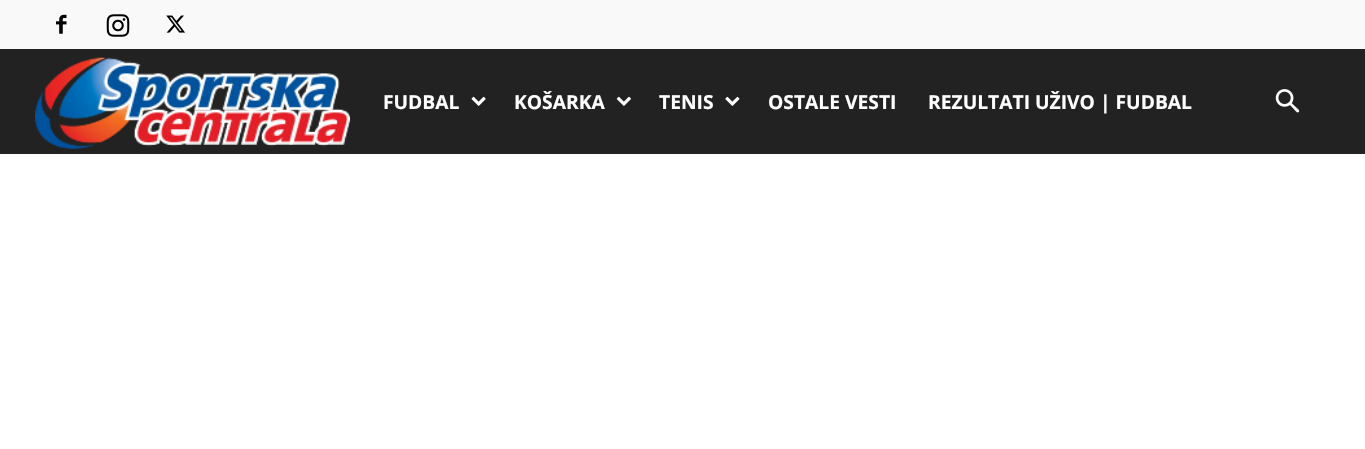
#include "include/core/SkBlurTypes.h"
#include "include/core/SkCanvas.h"
#include "include/core/SkData.h"
#include "include/core/SkFont.h"
#include "include/core/SkFontMgr.h"
#include "include/core/SkImage.h"
#include "include/core/SkMaskFilter.h"
#include "include/core/SkPaint.h"
#include "include/core/SkPathBuilder.h"
#include "include/core/SkTextBlob.h"
#include "include/effects/SkDashPathEffect.h"
#include "include/effects/SkGradientShader.h"
#include "include/utils/SkParsePath.h"

extern sk_sp<SkFontMgr> fontMgr;

void draw(SkCanvas* canvas) {
    SkPaint p;
    p.setAntiAlias(true);
    auto font = [&](const char* family, int weight, float size, bool italic = false) {
        SkFontStyle style(weight, SkFontStyle::kNormal_Width,
            italic ? SkFontStyle::kItalic_Slant : SkFontStyle::kUpright_Slant);
        SkFont result(fontMgr->matchFamilyStyle(family, style), size);
        result.setSubpixel(true);
        return result;
    };
    auto drawPhoto = [&](const char* path, float l, float t, float r, float b) {
        auto image = SkImages::DeferredFromEncodedData(SkData::MakeFromFileName(path));
        canvas->drawImageRect(image, SkRect::MakeLTRB(l, t, r, b), SkSamplingOptions());
    };
    canvas->clear(0xFFFFFFFF);
    p.setColor(0xFFF9F9F9);
    canvas->drawRect(SkRect::MakeLTRB(0, 0, 1365, 49), p);
    drawPhoto("media/1.png", 56, 14, 67, 34);
    drawPhoto("media/2.png", 106, 14, 130, 37);
    drawPhoto("media/3.png", 166, 15, 185, 33);
    p.setColor(0xFF222222);
    canvas->drawRect(SkRect::MakeLTRB(0, 49, 1365, 154), p);
    drawPhoto("media/4.png", 35, 57, 350, 149);
    auto font1 = font("Open Sans", 700, 19.25f);
    p.setColor(0xFFFFFFFF);
    canvas->drawString("FUDBAL", 383, 109, font1, p);
    drawPhoto("media/5.png", 471, 96, 486, 106);
    canvas->drawString("KOŠARKA", 514, 109, font1, p);
    drawPhoto("media/6.png", 616, 96, 631, 106);
    canvas->drawString("TENIS", 659, 109, font1, p);
    drawPhoto("media/7.png", 725, 96, 740, 106);
    canvas->drawString("OSTALE VESTI", 768, 109, font1, p);
    canvas->drawString("REZULTATI UŽIVO | FUDBAL", 928, 109, font1, p);
    drawPhoto("media/8.png", 1275, 89, 1300, 113);
}
